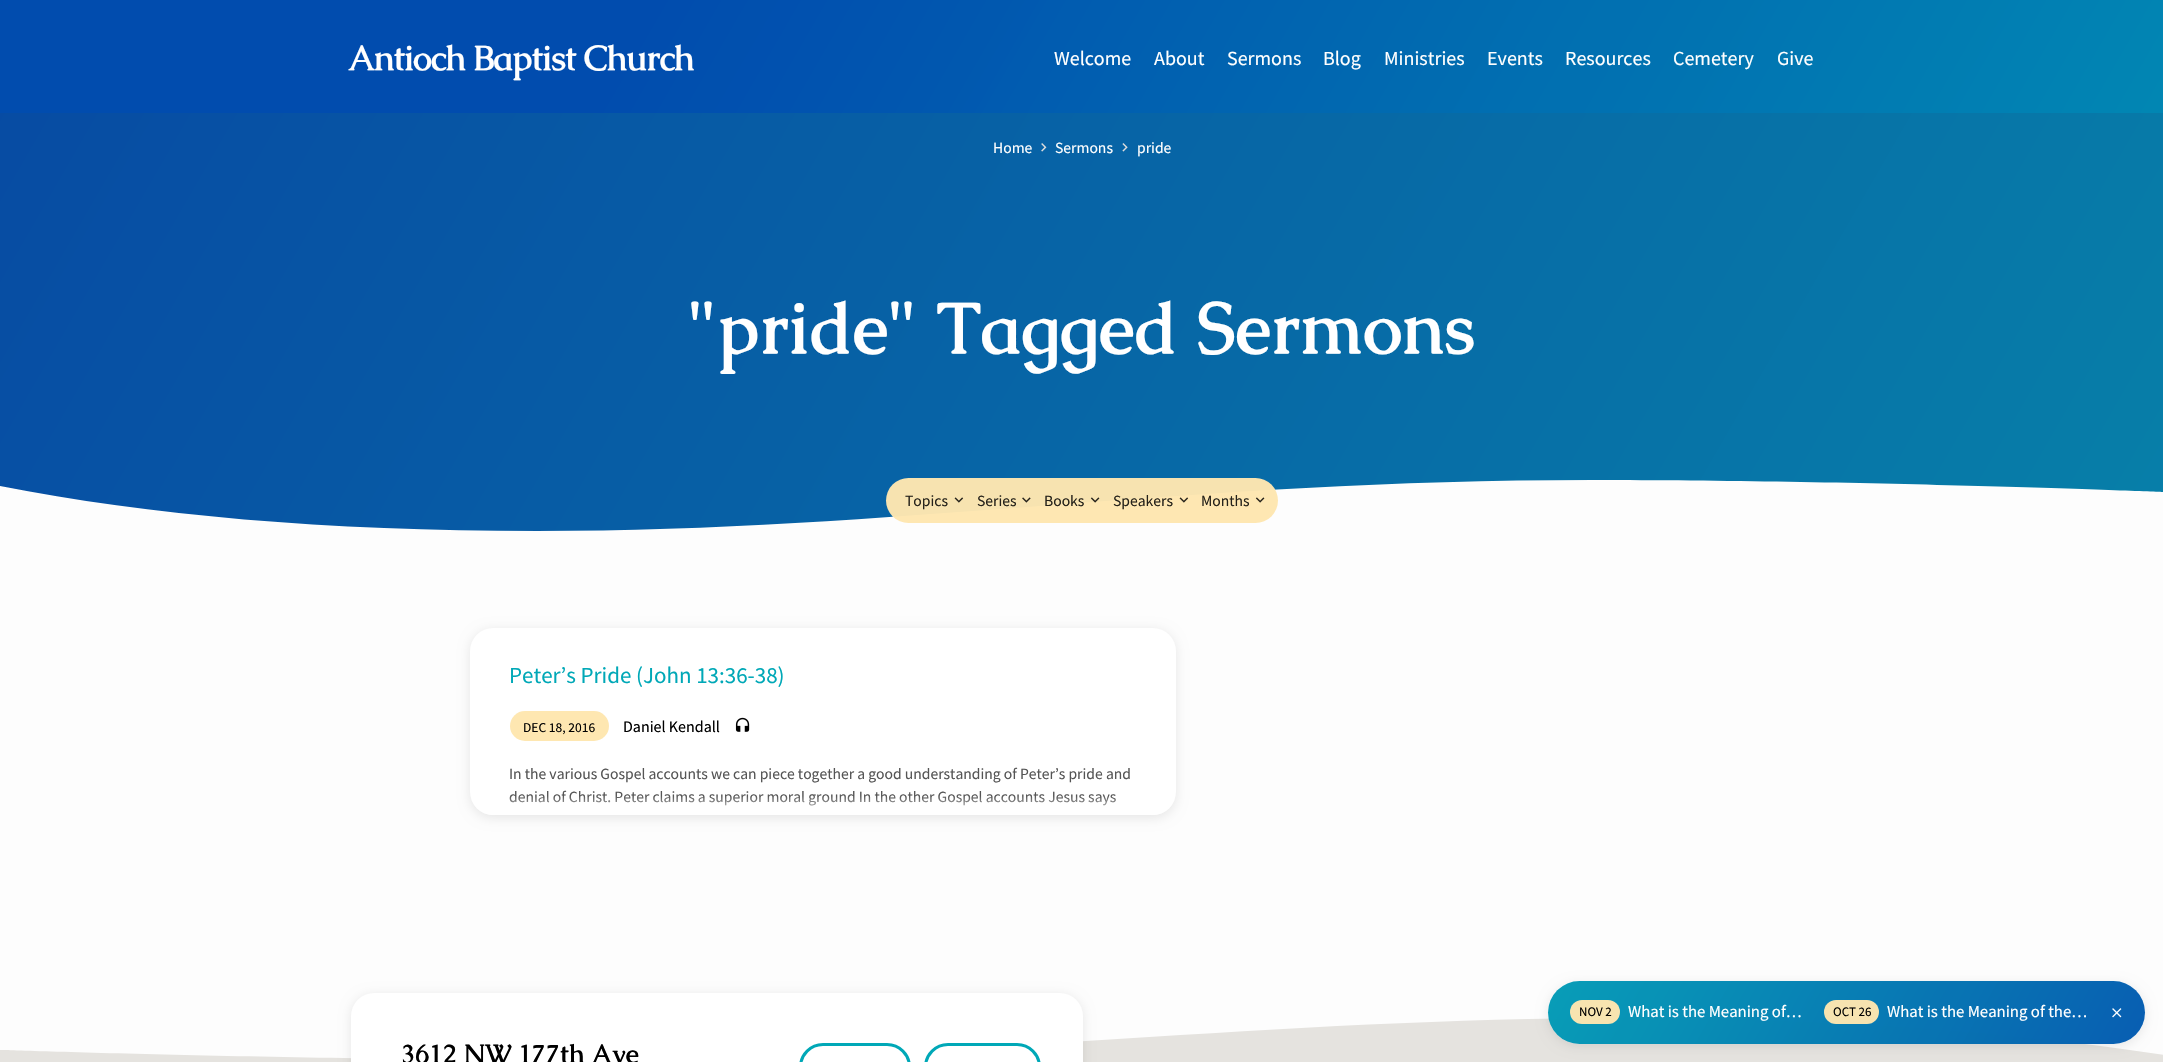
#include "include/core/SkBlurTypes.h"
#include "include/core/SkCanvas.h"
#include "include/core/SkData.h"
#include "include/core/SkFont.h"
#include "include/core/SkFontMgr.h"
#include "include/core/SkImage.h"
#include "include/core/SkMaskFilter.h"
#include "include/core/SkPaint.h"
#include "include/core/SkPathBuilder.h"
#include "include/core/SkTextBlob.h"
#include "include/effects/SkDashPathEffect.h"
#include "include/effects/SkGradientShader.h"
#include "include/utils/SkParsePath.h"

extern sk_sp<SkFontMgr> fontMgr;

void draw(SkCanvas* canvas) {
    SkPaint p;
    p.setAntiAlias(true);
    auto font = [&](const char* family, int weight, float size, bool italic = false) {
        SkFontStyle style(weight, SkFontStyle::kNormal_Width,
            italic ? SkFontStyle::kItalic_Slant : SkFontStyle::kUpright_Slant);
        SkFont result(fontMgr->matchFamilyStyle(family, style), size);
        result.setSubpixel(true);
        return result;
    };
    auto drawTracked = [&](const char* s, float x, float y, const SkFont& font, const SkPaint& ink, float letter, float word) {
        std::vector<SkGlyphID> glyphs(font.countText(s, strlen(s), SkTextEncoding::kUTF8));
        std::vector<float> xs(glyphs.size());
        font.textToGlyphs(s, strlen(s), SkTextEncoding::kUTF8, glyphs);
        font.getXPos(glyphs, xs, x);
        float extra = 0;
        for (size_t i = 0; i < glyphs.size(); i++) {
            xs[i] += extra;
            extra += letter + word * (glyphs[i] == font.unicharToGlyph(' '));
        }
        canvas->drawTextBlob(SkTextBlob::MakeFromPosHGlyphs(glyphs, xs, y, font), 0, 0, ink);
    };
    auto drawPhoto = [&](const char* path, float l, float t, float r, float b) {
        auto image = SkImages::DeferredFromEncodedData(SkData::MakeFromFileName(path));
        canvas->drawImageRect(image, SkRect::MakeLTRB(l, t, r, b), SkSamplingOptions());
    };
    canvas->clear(0xFFFDFDFD);
    {
        const SkColor colors[] = {0xFF074AA3, 0xFF079FAC};
        const float stops[] = {0, 1};
        const SkPoint ends[] = {{155, -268}, {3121, 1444}};
        p.setShader(SkGradientShader::MakeLinear(ends, colors, stops, 2, SkTileMode::kClamp));
        p.setAlpha(255);
    }
    canvas->drawRect(SkRect::MakeLTRB(0, 0, 2163, 531), p);
    {
        const SkColor colors[] = {0xF7004BAD, 0xF700A8B7};
        const float stops[] = {0.21f, 1};
        const SkPoint ends[] = {{246, -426}, {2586, 925}};
        p.setShader(SkGradientShader::MakeLinear(ends, colors, stops, 2, SkTileMode::kClamp));
        p.setAlpha(255);
    }
    canvas->drawRect(SkRect::MakeLTRB(0, 0, 2163, 113), p);
    auto font1 = font("Caudex", 700, 35);
    p.setShader(nullptr);
    p.setColor(0xFFFFFFFF);
    drawTracked("Antioch Baptist Church", 348, 70, font1, p, -1.1f, 0);
    auto font2 = font("Source Sans Pro", 400, 20);
    {
        const struct { const char* s; float x, y; } items[] = {
            {"Welcome", 1054, 65},
            {"About", 1154, 65},
            {"Sermons", 1227, 65},
            {"Blog", 1323, 65},
            {"Ministries", 1384, 65},
            {"Events", 1487, 65},
            {"Resources", 1565, 65},
            {"Cemetery", 1673, 65},
            {"Give", 1777, 65},
        };
        for (auto [s, x, y] : items) {
            canvas->drawString(s, x, y, font2, p);
        }
    }
    auto font3 = font("Source Sans Pro", 400, 15.6f);
    canvas->drawString("Home", 993, 153, font3, p);
    drawPhoto("media/1.png", 1041, 143, 1047, 152);
    canvas->drawString("Sermons", 1055, 153, font3, p);
    drawPhoto("media/2.png", 1122, 143, 1128, 152);
    canvas->drawString("pride", 1137, 153, font3, p);
    p.setColor(0xFFFDFDFD);
    canvas->drawPath(SkPathBuilder().moveTo(0, 486).cubicTo(148, 515, 324, 531, 537, 531).cubicTo(894, 531, 1186, 480, 1592, 480).cubicTo(1862, 480, 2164, 492, 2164, 492).lineTo(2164, 534).lineTo(0, 534).detach(), p);
    p.setColor(0xF7FEE6AF);
    canvas->drawRoundRect(SkRect::MakeLTRB(886, 478, 1278, 523), 22.5f, 22.5f, p);
    p.setColor(0xFF25221A);
    canvas->drawString("Topics", 905, 506, font3, p);
    drawPhoto("media/3.png", 954, 497, 964, 503);
    canvas->drawString("Series", 977, 506, font3, p);
    drawPhoto("media/4.png", 1022, 497, 1031, 503);
    canvas->drawString("Books", 1044, 506, font3, p);
    drawPhoto("media/5.png", 1090, 497, 1100, 503);
    canvas->drawString("Speakers", 1113, 506, font3, p);
    drawPhoto("media/6.png", 1179, 497, 1189, 503);
    canvas->drawString("Months", 1201, 506, font3, p);
    drawPhoto("media/7.png", 1255, 497, 1265, 503);
    auto font4 = font("Caudex", 700, 72);
    p.setColor(0xFFFFFFFF);
    canvas->drawString("\"pride\" Tagged Sermons", 688, 353, font4, p);
    p.setColor(0x17000000);
    p.setMaskFilter(SkMaskFilter::MakeBlur(kNormal_SkBlurStyle, 6));
    canvas->drawRoundRect(SkRect::MakeLTRB(470, 630, 1176, 818), 23, 23, p);
    p.setMaskFilter(nullptr);
    p.setColor(0xFFFFFFFF);
    canvas->drawRoundRect(SkRect::MakeLTRB(470, 628, 1176, 815), 23, 23, p);
    auto font5 = font("Source Sans Pro", 400, 23);
    p.setColor(0xFF00A8B7);
    canvas->drawString("Peter’s Pride (John 13:36-38)", 509, 683, font5, p);
    p.setColor(0xFFFEE7B1);
    canvas->drawRoundRect(SkRect::MakeLTRB(510, 711, 609, 741), 15, 15, p);
    auto font6 = font("Source Sans Pro", 400, 13.5f);
    p.setColor(0xFF000000);
    canvas->drawString("DEC 18, 2016", 523, 732, font6, p);
    auto font7 = font("Source Sans Pro", 400, 16);
    canvas->drawString("Daniel Kendall", 623, 732, font7, p);
    drawPhoto("media/8.png", 735, 717, 750, 732);
    p.setColor(0xFF555555);
    canvas->drawString("In the various Gospel accounts we can piece together a good understanding of Peter’s pride and", 509, 779, font3, p);
    canvas->drawString("denial of Christ. Peter claims a superior moral ground In the other Gospel accounts Jesus says", 509, 802, font3, p);
    canvas->save();
    canvas->clipPath(SkPathBuilder().moveTo(493, 628).lineTo(1153, 628).cubicTo(1165.5f, 628, 1176, 638.5f, 1176, 651).lineTo(1176, 792).cubicTo(1176, 804.5f, 1165.5f, 815, 1153, 815).lineTo(493, 815).cubicTo(480.5f, 815, 470, 804.5f, 470, 792).lineTo(470, 651).cubicTo(470, 638.5f, 480.5f, 628, 493, 628).close().detach(), true);
    {
        const SkColor colors[] = {0x00FFFFFF, 0xE6FFFFFF};
        const float stops[] = {0, 1};
        const SkPoint ends[] = {{823, 796}, {823, 815}};
        p.setShader(SkGradientShader::MakeLinear(ends, colors, stops, 2, SkTileMode::kClamp));
        p.setAlpha(255);
    }
    canvas->drawRect(SkRect::MakeLTRB(470, 796, 1176, 815), p);
    canvas->restore();
    p.setShader(nullptr);
    p.setColor(0xFFE5E3DF);
    canvas->drawRect(SkRect::MakeLTRB(0, 1018, 2163, 1062), p);
    p.setColor(0xFFFDFDFD);
    canvas->drawPath(SkPathBuilder().moveTo(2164, 1055).cubicTo(2016, 1032, 1840, 1018, 1627, 1018).cubicTo(1270, 1018, 978, 1060, 572, 1060).cubicTo(302, 1060, 0, 1050, 0, 1050).lineTo(0, 1016).lineTo(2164, 1016).detach(), p);
    canvas->save();
    canvas->clipPath(SkPathBuilder(SkPathFillType::kEvenOdd).moveTo(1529, 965).lineTo(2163, 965).lineTo(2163, 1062).lineTo(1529, 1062).close().moveTo(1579.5f, 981).lineTo(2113.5f, 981).cubicTo(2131, 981, 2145, 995, 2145, 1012.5f).cubicTo(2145, 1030, 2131, 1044, 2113.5f, 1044).lineTo(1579.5f, 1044).cubicTo(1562, 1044, 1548, 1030, 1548, 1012.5f).cubicTo(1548, 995, 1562, 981, 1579.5f, 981).close().detach(), true);
    p.setColor(0x17000000);
    p.setMaskFilter(SkMaskFilter::MakeBlur(kNormal_SkBlurStyle, 6));
    canvas->drawRoundRect(SkRect::MakeLTRB(1548, 984, 2145, 1046), 31, 31, p);
    p.setMaskFilter(nullptr);
    canvas->restore();
    {
        const SkColor colors[] = {0xF700A8B7, 0xF7004BAD};
        const float stops[] = {0, 1};
        const SkPoint ends[] = {{1514, 820}, {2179, 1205}};
        p.setShader(SkGradientShader::MakeLinear(ends, colors, stops, 2, SkTileMode::kClamp));
        p.setAlpha(255);
    }
    canvas->drawRoundRect(SkRect::MakeLTRB(1548, 981, 2145, 1044), 31.5f, 31.5f, p);
    p.setShader(nullptr);
    p.setColor(0xF7FEE6AF);
    canvas->drawRoundRect(SkRect::MakeLTRB(1570, 1000, 1620, 1024), 12, 12, p);
    auto font8 = font("Source Sans Pro", 400, 13);
    p.setColor(0xFF000000);
    canvas->drawString("NOV 2", 1579, 1016, font8, p);
    auto font9 = font("Source Sans Pro", 400, 16.75f);
    p.setColor(0xFFFFFFFF);
    canvas->drawString("What is the Meaning of…", 1628, 1017, font9, p);
    p.setColor(0xF7FEE6AF);
    canvas->drawRoundRect(SkRect::MakeLTRB(1824, 1000, 1879, 1024), 12, 12, p);
    p.setColor(0xFF000000);
    canvas->drawString("OCT 26", 1833, 1016, font8, p);
    p.setColor(0xFFFFFFFF);
    canvas->drawString("What is the Meaning of the…", 1887, 1017, font9, p);
    drawPhoto("media/9.png", 2112, 1008, 2122, 1018);
    p.setColor(0x17000000);
    p.setMaskFilter(SkMaskFilter::MakeBlur(kNormal_SkBlurStyle, 6));
    canvas->drawRoundRect(SkRect::MakeLTRB(351, 995, 1083, 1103), 23, 23, p);
    p.setMaskFilter(nullptr);
    p.setColor(0xFFFFFFFF);
    canvas->drawRoundRect(SkRect::MakeLTRB(351, 993, 1083, 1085), 23, 23, p);
    auto font10 = font("Caudex", 700, 26.5f);
    p.setColor(0xFF000000);
    canvas->drawString("3612 NW 177th Ave", 401, 1063, font10, p);
    p.setStyle(SkPaint::kStroke_Style);
    p.setStrokeWidth(3);
    p.setColor(0xFF00A8B7);
    canvas->drawRoundRect(SkRect::MakeLTRB(800.5f, 1044.5f, 909.5f, 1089.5f), 24, 24, p);
    canvas->drawRoundRect(SkRect::MakeLTRB(925.5f, 1044.5f, 1039.5f, 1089.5f), 24, 24, p);
}
